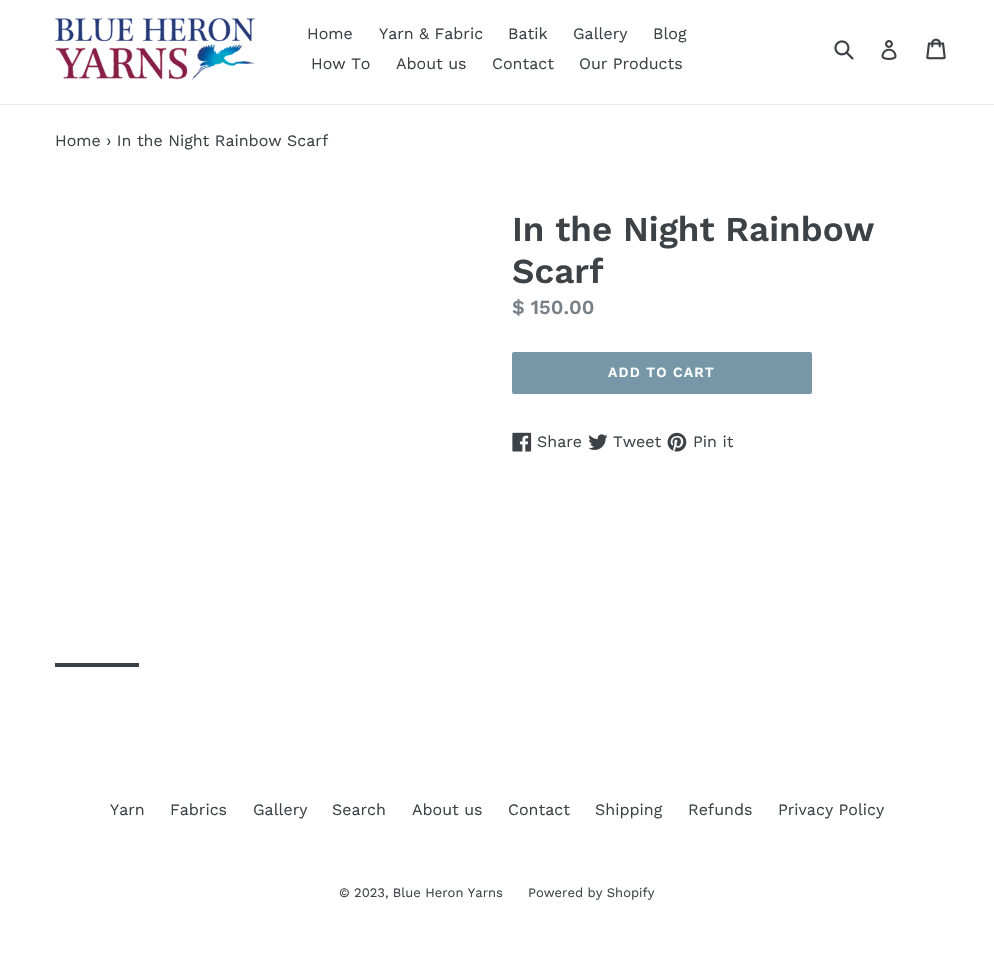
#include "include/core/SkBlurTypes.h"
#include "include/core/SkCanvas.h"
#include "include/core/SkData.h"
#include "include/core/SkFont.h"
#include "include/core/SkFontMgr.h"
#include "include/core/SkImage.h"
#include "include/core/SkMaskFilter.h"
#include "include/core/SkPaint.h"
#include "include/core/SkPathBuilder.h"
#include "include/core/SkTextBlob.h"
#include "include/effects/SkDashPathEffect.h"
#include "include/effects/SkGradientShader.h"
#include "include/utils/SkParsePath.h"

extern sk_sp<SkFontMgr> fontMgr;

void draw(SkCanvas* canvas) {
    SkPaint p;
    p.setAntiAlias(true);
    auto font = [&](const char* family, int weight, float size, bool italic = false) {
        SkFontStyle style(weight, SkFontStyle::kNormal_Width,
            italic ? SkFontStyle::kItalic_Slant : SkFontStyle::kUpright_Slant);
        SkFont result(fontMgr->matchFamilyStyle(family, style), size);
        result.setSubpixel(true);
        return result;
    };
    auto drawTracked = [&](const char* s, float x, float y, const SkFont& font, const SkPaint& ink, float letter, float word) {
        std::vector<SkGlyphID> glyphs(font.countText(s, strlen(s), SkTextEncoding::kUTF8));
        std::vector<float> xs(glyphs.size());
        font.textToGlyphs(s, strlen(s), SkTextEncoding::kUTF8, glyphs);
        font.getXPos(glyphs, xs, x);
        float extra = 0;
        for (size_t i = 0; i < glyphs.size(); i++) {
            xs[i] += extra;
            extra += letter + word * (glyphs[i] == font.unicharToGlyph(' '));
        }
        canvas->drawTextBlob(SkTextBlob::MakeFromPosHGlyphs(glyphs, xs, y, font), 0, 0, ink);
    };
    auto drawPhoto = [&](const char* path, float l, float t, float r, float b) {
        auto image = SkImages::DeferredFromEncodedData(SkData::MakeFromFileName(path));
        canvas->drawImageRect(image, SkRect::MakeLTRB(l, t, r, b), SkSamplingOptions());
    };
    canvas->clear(0xFFFFFFFF);
    p.setColor(0xFFE8E9EB);
    canvas->drawRect(SkRect::MakeLTRB(0, 104, 994, 105), p);
    drawPhoto("media/1.png", 55, 18, 255, 80);
    auto font1 = font("Work Sans", 400, 16);
    p.setColor(0xFF3D4246);
    {
        const struct { const char* s; float x, y; } items[] = {
            {"Home", 307, 39},
            {"Yarn & Fabric", 379, 39},
            {"Batik", 508, 39},
            {"Gallery", 573, 39},
            {"Blog", 653, 39},
            {"How To", 311, 69},
            {"About us", 396, 69},
            {"Contact", 492, 69},
            {"Our Products", 579, 69},
        };
        for (auto [s, x, y] : items) {
            canvas->drawString(s, x, y, font1, p);
        }
    }
    drawPhoto("media/2.png", 834, 40, 854, 60);
    drawPhoto("media/3.png", 881, 40, 897, 60);
    drawPhoto("media/4.png", 926, 38, 946, 60);
    canvas->drawString("Home › In the Night Rainbow Scarf", 55, 146, font1, p);
    auto font2 = font("Work Sans", 600, 35);
    canvas->drawString("In the Night Rainbow", 512, 241, font2, p);
    canvas->drawString("Scarf", 512, 283, font2, p);
    auto font3 = font("Work Sans", 600, 20);
    p.setColor(0xFF788188);
    canvas->drawString("$ 150.00", 512, 314, font3, p);
    p.setColor(0xFF7796A8);
    canvas->drawRoundRect(SkRect::MakeLTRB(512, 352, 812, 394), 2, 2, p);
    auto font4 = font("Work Sans", 600, 14);
    p.setColor(0xFFFFFFFF);
    drawTracked("ADD TO CART", 608, 377, font4, p, 1.1f, 0);
    drawPhoto("media/5.png", 512, 432, 532, 452);
    p.setColor(0xFF3D4246);
    canvas->drawString("Share", 537, 447, font1, p);
    drawPhoto("media/6.png", 588, 434, 608, 450);
    canvas->drawString("Tweet", 613, 447, font1, p);
    drawPhoto("media/7.png", 667, 432, 687, 452);
    canvas->drawString("Pin it", 693, 447, font1, p);
    canvas->drawRect(SkRect::MakeLTRB(55, 663, 139, 667), p);
    {
        const struct { const char* s; float x, y; } items[] = {
            {"Yarn", 110, 815},
            {"Fabrics", 170, 815},
            {"Gallery", 253, 815},
            {"Search", 332, 815},
            {"About us", 412, 815},
            {"Contact", 508, 815},
            {"Shipping", 595, 815},
            {"Refunds", 688, 815},
            {"Privacy Policy", 778, 815},
        };
        for (auto [s, x, y] : items) {
            canvas->drawString(s, x, y, font1, p);
        }
    }
    auto font5 = font("Work Sans", 400, 13);
    canvas->drawString("© 2023, Blue Heron Yarns", 339, 897, font5, p);
    canvas->drawString("Powered by Shopify", 528, 897, font5, p);
}
